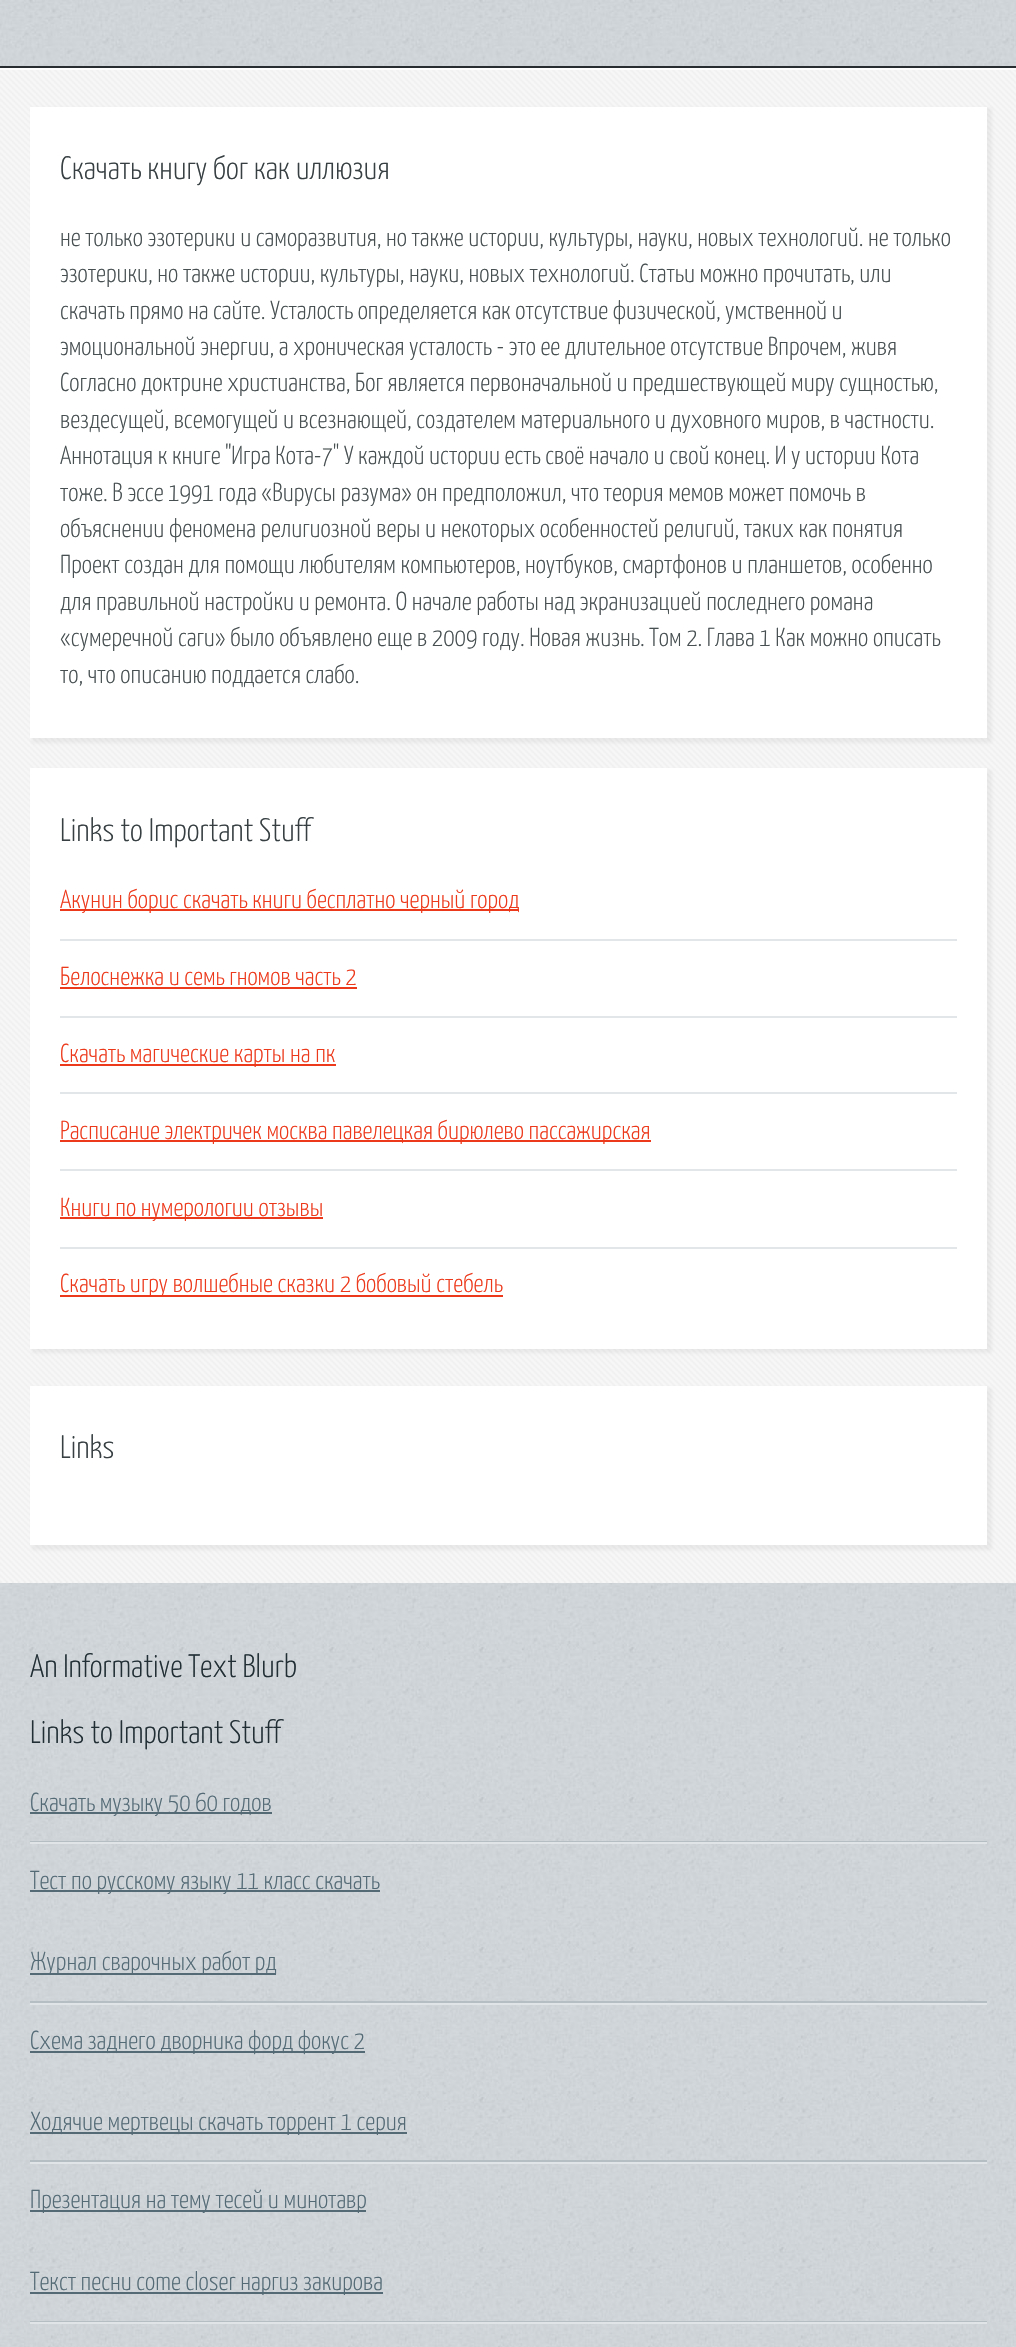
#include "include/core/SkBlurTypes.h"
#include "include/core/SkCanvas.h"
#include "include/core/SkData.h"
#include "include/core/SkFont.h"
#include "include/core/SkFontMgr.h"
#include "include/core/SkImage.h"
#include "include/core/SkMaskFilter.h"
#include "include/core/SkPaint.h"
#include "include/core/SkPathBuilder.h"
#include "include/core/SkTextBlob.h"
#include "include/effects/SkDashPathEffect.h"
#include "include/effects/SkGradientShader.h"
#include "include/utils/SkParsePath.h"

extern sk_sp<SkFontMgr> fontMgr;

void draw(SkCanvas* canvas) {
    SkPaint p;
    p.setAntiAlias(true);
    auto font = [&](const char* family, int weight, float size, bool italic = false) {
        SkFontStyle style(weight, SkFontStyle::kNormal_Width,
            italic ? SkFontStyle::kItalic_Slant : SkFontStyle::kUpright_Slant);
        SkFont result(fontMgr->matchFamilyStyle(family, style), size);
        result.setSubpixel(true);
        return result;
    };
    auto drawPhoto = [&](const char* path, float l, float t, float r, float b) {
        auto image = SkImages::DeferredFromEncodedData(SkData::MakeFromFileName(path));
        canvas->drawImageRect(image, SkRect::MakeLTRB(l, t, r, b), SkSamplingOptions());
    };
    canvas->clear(0xFFFFFFFF);
    drawPhoto("media/1.png", 0, 0, 1016, 2347);
    p.setColor(0xFF272D30);
    canvas->drawRect(SkRect::MakeLTRB(0, 66, 1016, 68), p);
    p.setColor(0xFFF7F7F7);
    canvas->drawRect(SkRect::MakeLTRB(0, 70, 1016, 1583), p);
    drawPhoto("media/2.png", 0, 70, 1016, 1583);
    p.setColor(0xFFFFFFFF);
    canvas->drawRect(SkRect::MakeLTRB(0, 68, 1016, 70), p);
    p.setColor(0x1A808080);
    p.setMaskFilter(SkMaskFilter::MakeBlur(kNormal_SkBlurStyle, 1.5f));
    canvas->drawRect(SkRect::MakeLTRB(32, 108, 992, 743), p);
    p.setMaskFilter(nullptr);
    p.setColor(0xFFFFFFFF);
    canvas->drawRect(SkRect::MakeLTRB(30, 107, 987, 738), p);
    auto font1 = font("Yanone Kaffeesatz", 300, 32.5f);
    p.setColor(0xFF373F42);
    canvas->drawString("Скачать книгу бог как иллюзия", 60, 179, font1, p);
    auto font2 = font("Yanone Kaffeesatz", 300, 26);
    p.setColor(0xFF474F51);
    {
        const struct { const char* s; float x, y; } items[] = {
            {"не только эзотерики и саморазвития, но также истории, культуры, науки, новых технологий. не только", 60, 246},
            {"эзотерики, но также истории, культуры, науки, новых технологий. Статьи можно прочитать, или", 60, 282},
            {"скачать прямо на сайте. Усталость определяется как отсутствие физической, умственной и", 60, 319},
            {"эмоциональной энергии, а хроническая усталость - это ее длительное отсутствие Впрочем, живя", 60, 355},
            {"Согласно доктрине христианства, Бог является первоначальной и предшествующей миру сущностью,", 60, 391},
            {"вездесущей, всемогущей и всезнающей, создателем материального и духовного миров, в частности.", 60, 428},
            {"Аннотация к книге \"Игра Кота-7\" У каждой истории есть своё начало и свой конец. И у истории Кота", 60, 464},
            {"тоже. В эссе 1991 года «Вирусы разума» он предположил, что теория мемов может помочь в", 60, 501},
            {"объяснении феномена религиозной веры и некоторых особенностей религий, таких как понятия", 60, 537},
            {"Проект создан для помощи любителям компьютеров, ноутбуков, смартфонов и планшетов, особенно", 60, 573},
            {"для правильной настройки и ремонта. О начале работы над экранизацией последнего романа", 60, 610},
            {"«сумеречной саги» было объявлено еще в 2009 году. Новая жизнь. Том 2. Глава 1 Как можно описать", 60, 646},
            {"то, что описанию поддается слабо.", 60, 683},
        };
        for (auto [s, x, y] : items) {
            canvas->drawString(s, x, y, font2, p);
        }
    }
    p.setColor(0x1A808080);
    p.setMaskFilter(SkMaskFilter::MakeBlur(kNormal_SkBlurStyle, 1.5f));
    canvas->drawRect(SkRect::MakeLTRB(32, 770, 992, 1353), p);
    p.setMaskFilter(nullptr);
    p.setColor(0xFFFFFFFF);
    canvas->drawRect(SkRect::MakeLTRB(30, 768, 987, 1349), p);
    p.setColor(0xFF373F42);
    canvas->drawString("Links to Important Stuff", 60, 841, font1, p);
    p.setColor(0xFFE2E6E8);
    canvas->drawRect(SkRect::MakeLTRB(60, 939, 957, 941), p);
    p.setColor(0xFFED391B);
    canvas->drawRect(SkRect::MakeLTRB(60, 909, 519, 911), p);
    canvas->drawString("Акунин борис скачать книги бесплатно черный город", 60, 908, font2, p);
    p.setColor(0xFFE2E6E8);
    canvas->drawRect(SkRect::MakeLTRB(60, 1016, 957, 1018), p);
    p.setColor(0xFFED391B);
    canvas->drawString("Белоснежка и семь гномов часть 2", 60, 985, font2, p);
    {
        const struct { float l, t, r, b; SkColor color; } items[] = {
            {60, 987, 357, 989, 0xFFED391B},
            {60, 1092, 957, 1094, 0xFFE2E6E8},
            {60, 1064, 336, 1066, 0xFFED391B},
        };
        for (auto [l, t, r, b, color] : items) {
            p.setColor(color);
            canvas->drawRect(SkRect::MakeLTRB(l, t, r, b), p);
        }
    }
    canvas->drawString("Скачать магические карты на пк", 60, 1062, font2, p);
    p.setColor(0xFFE2E6E8);
    canvas->drawRect(SkRect::MakeLTRB(60, 1169, 957, 1171), p);
    p.setColor(0xFFED391B);
    canvas->drawRect(SkRect::MakeLTRB(60, 1140, 651, 1142), p);
    canvas->drawString("Расписание электричек москва павелецкая бирюлево пассажирская", 60, 1139, font2, p);
    p.setColor(0xFFE2E6E8);
    canvas->drawRect(SkRect::MakeLTRB(60, 1247, 957, 1249), p);
    p.setColor(0xFFED391B);
    canvas->drawRect(SkRect::MakeLTRB(60, 1217, 323, 1219), p);
    canvas->drawString("Книги по нумерологии отзывы", 60, 1216, font2, p);
    canvas->drawRect(SkRect::MakeLTRB(60, 1295, 503, 1297), p);
    canvas->drawString("Скачать игру волшебные сказки 2 бобовый стебель", 60, 1292, font2, p);
    p.setColor(0x1A808080);
    p.setMaskFilter(SkMaskFilter::MakeBlur(kNormal_SkBlurStyle, 1.5f));
    canvas->drawRect(SkRect::MakeLTRB(32, 1388, 992, 1550), p);
    p.setMaskFilter(nullptr);
    p.setColor(0xFFFFFFFF);
    canvas->drawRect(SkRect::MakeLTRB(30, 1386, 987, 1545), p);
    p.setColor(0xFF373F42);
    canvas->drawString("Links", 60, 1458, font1, p);
    p.setColor(0xFF212F35);
    canvas->drawString("An Informative Text Blurb", 30, 1677, font1, p);
    canvas->drawString("Links to Important Stuff", 30, 1743, font1, p);
    p.setColor(0xFFB5BEC3);
    canvas->drawRect(SkRect::MakeLTRB(30, 1841, 987, 1842), p);
    p.setColor(0xFF546B76);
    canvas->drawRect(SkRect::MakeLTRB(30, 1812, 272, 1814), p);
    canvas->drawString("Скачать музыку 50 60 годов", 30, 1811, font2, p);
    p.setColor(0xFFE0E4E6);
    canvas->drawRect(SkRect::MakeLTRB(30, 1842, 987, 1844), p);
    p.setColor(0xFF546B76);
    canvas->drawRect(SkRect::MakeLTRB(30, 1890, 380, 1892), p);
    canvas->drawString("Тест по русскому языку 11 класс скачать", 30, 1889, font2, p);
    p.setColor(0xFFB5BEC3);
    canvas->drawRect(SkRect::MakeLTRB(30, 2001, 987, 2003), p);
    p.setColor(0xFF546B76);
    canvas->drawRect(SkRect::MakeLTRB(30, 1973, 276, 1975), p);
    canvas->drawString("Журнал сварочных работ рд", 30, 1970, font2, p);
    p.setColor(0xFFE0E4E6);
    canvas->drawRect(SkRect::MakeLTRB(30, 2003, 987, 2005), p);
    p.setColor(0xFF546B76);
    canvas->drawRect(SkRect::MakeLTRB(30, 2051, 365, 2053), p);
    canvas->drawString("Схема заднего дворника форд фокус 2", 30, 2049, font2, p);
    p.setColor(0xFFB5BEC3);
    canvas->drawRect(SkRect::MakeLTRB(30, 2160, 987, 2162), p);
    p.setColor(0xFF546B76);
    canvas->drawRect(SkRect::MakeLTRB(30, 2132, 407, 2134), p);
    canvas->drawString("Ходячие мертвецы скачать торрент 1 серия", 30, 2130, font2, p);
    p.setColor(0xFFE0E4E6);
    canvas->drawRect(SkRect::MakeLTRB(30, 2162, 987, 2164), p);
    p.setColor(0xFF546B76);
    canvas->drawRect(SkRect::MakeLTRB(30, 2210, 366, 2212), p);
    canvas->drawString("Презентация на тему тесей и минотавр", 30, 2208, font2, p);
    p.setColor(0xFFB5BEC3);
    canvas->drawRect(SkRect::MakeLTRB(30, 2321, 987, 2322), p);
    p.setColor(0xFF546B76);
    canvas->drawRect(SkRect::MakeLTRB(30, 2292, 383, 2294), p);
    canvas->drawString("Текст песни come closer наргиз закирова", 30, 2290, font2, p);
    p.setColor(0xFFE0E4E6);
    canvas->drawRect(SkRect::MakeLTRB(30, 2322, 987, 2324), p);
}
